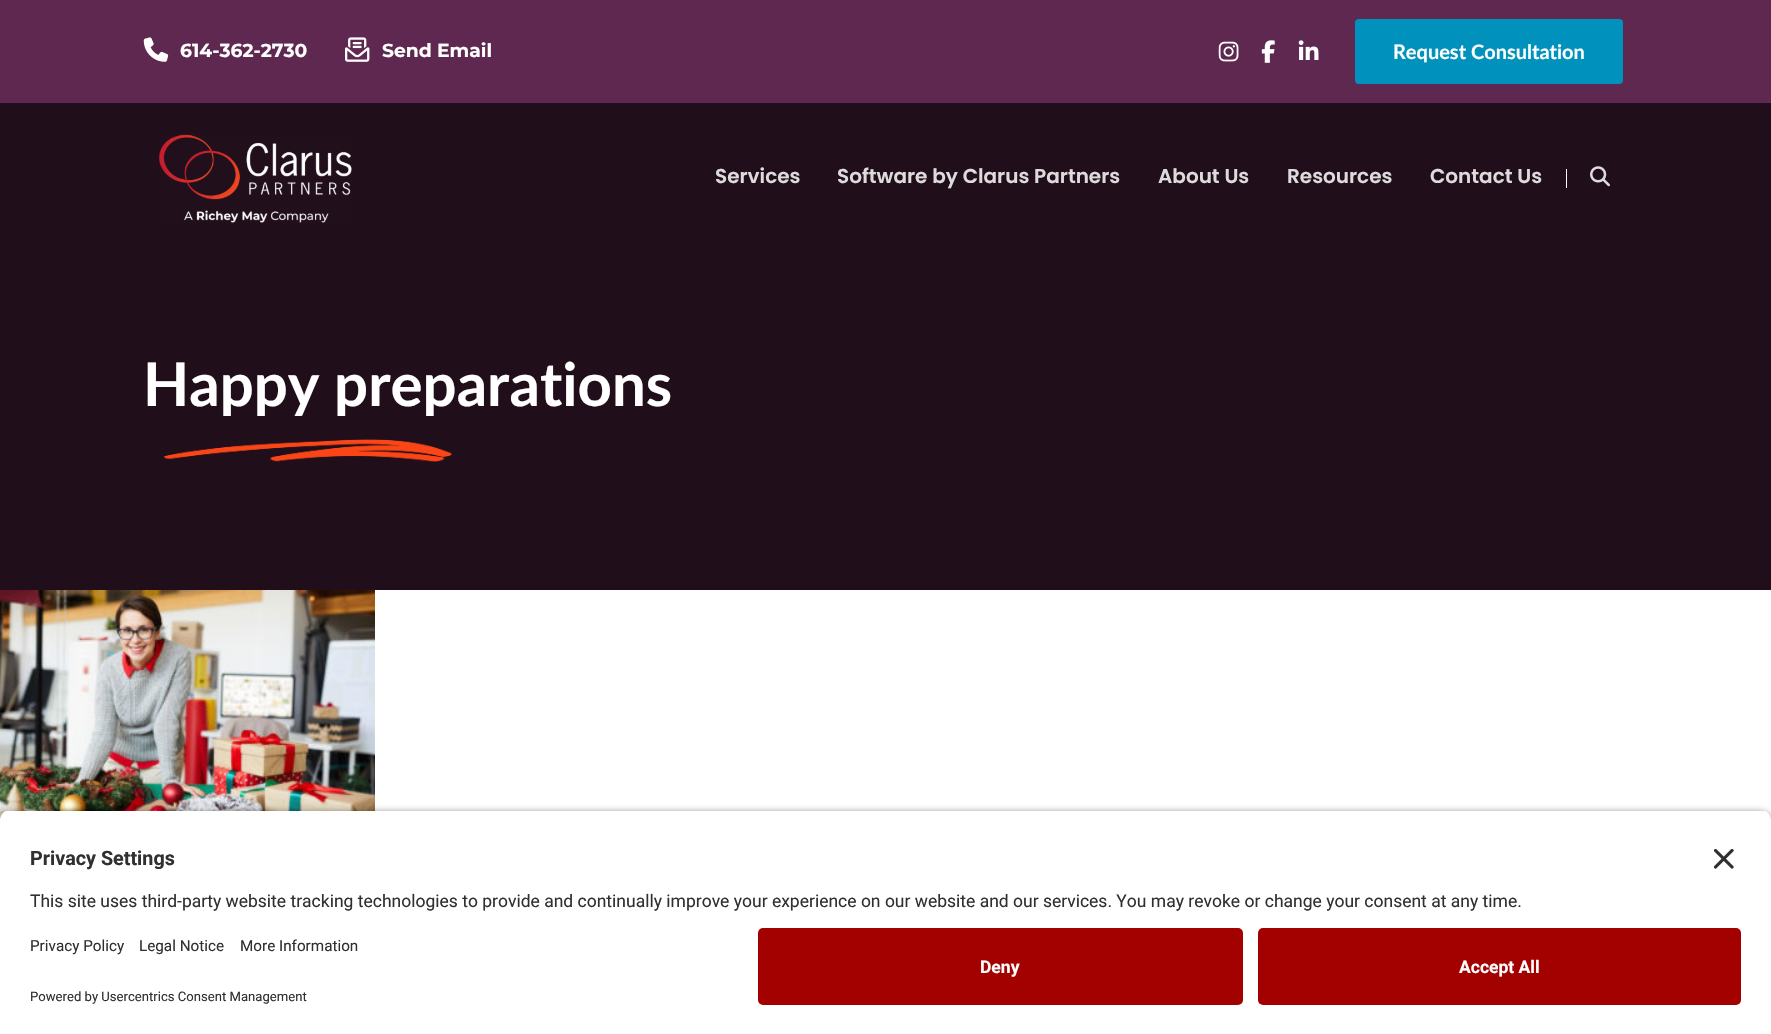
#include "include/core/SkBlurTypes.h"
#include "include/core/SkCanvas.h"
#include "include/core/SkData.h"
#include "include/core/SkFont.h"
#include "include/core/SkFontMgr.h"
#include "include/core/SkImage.h"
#include "include/core/SkMaskFilter.h"
#include "include/core/SkPaint.h"
#include "include/core/SkPathBuilder.h"
#include "include/core/SkTextBlob.h"
#include "include/effects/SkDashPathEffect.h"
#include "include/effects/SkGradientShader.h"
#include "include/utils/SkParsePath.h"

extern sk_sp<SkFontMgr> fontMgr;

void draw(SkCanvas* canvas) {
    SkPaint p;
    p.setAntiAlias(true);
    auto font = [&](const char* family, int weight, float size, bool italic = false) {
        SkFontStyle style(weight, SkFontStyle::kNormal_Width,
            italic ? SkFontStyle::kItalic_Slant : SkFontStyle::kUpright_Slant);
        SkFont result(fontMgr->matchFamilyStyle(family, style), size);
        result.setSubpixel(true);
        return result;
    };
    auto drawPhoto = [&](const char* path, float l, float t, float r, float b) {
        auto image = SkImages::DeferredFromEncodedData(SkData::MakeFromFileName(path));
        canvas->drawImageRect(image, SkRect::MakeLTRB(l, t, r, b), SkSamplingOptions());
    };
    canvas->clear(0xFFFFFFFF);
    p.setColor(0xFF5F2850);
    canvas->drawRect(SkRect::MakeLTRB(0, 0, 1771, 103), p);
    drawPhoto("media/1.png", 143, 37, 169, 62);
    auto font1 = font("Montserrat", 700, 18.75f);
    p.setColor(0xFFFFFFFF);
    canvas->drawString("614-362-2730", 180, 57, font1, p);
    drawPhoto("media/2.png", 345, 37, 370, 62);
    canvas->drawString("Send Email", 382, 57, font1, p);
    drawPhoto("media/3.png", 1218, 41, 1239, 62);
    drawPhoto("media/4.png", 1261, 40, 1275, 63);
    drawPhoto("media/5.png", 1298, 40, 1319, 60);
    p.setColor(0xFF0092BC);
    canvas->drawRoundRect(SkRect::MakeLTRB(1355, 19, 1623, 84), 4, 4, p);
    auto font2 = font("Lato", 700, 20);
    p.setColor(0xFFFFFFFF);
    canvas->drawString("Request Consultation", 1393, 59, font2, p);
    p.setColor(0xFF210E1B);
    canvas->drawRect(SkRect::MakeLTRB(0, 103, 1771, 590), p);
    drawPhoto("media/6.png", 159, 134, 352, 223);
    auto font3 = font("Poppins", 600, 20);
    p.setColor(0xFFDEDBDD);
    {
        const struct { const char* s; float x, y; } items[] = {
            {"Services", 715, 183},
            {"Software by Clarus Partners", 837, 183},
            {"About Us", 1158, 183},
            {"Resources", 1287, 183},
            {"Contact Us", 1430, 183},
        };
        for (auto [s, x, y] : items) {
            canvas->drawString(s, x, y, font3, p);
        }
    }
    p.setColor(0xFFFFFFFF);
    canvas->drawRect(SkRect::MakeLTRB(1566, 169, 1567, 188), p);
    drawPhoto("media/7.png", 1590, 166, 1610, 187);
    auto font4 = font("Lato", 700, 60);
    canvas->drawString("Happy preparations", 143, 406, font4, p);
    drawPhoto("media/8.png", 164, 439, 452, 462);
    drawPhoto("media/9.png", 0, 590, 375, 820);
    p.setColor(0xCC000000);
    p.setMaskFilter(SkMaskFilter::MakeBlur(kNormal_SkBlurStyle, 4.5f));
    canvas->drawRoundRect(SkRect::MakeLTRB(0, 814, 1771, 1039), 10, 10, p);
    p.setMaskFilter(nullptr);
    canvas->save();
    canvas->clipPath(SkPathBuilder().moveTo(10, 810).lineTo(1761, 810).cubicTo(1766.5f, 810, 1771, 814.5f, 1771, 820).lineTo(1771, 918).lineTo(0, 918).lineTo(0, 820).cubicTo(0, 814.5f, 4.5f, 810, 10, 810).close().detach(), true);
    p.setColor(0xFFFFFFFF);
    canvas->drawRect(SkRect::MakeLTRB(0, 811, 1771, 918), p);
    canvas->restore();
    auto font5 = font("Roboto", 700, 19.75f);
    p.setColor(0xFF303030);
    canvas->drawString("Privacy Settings", 30, 865, font5, p);
    drawPhoto("media/10.png", 1714, 849, 1734, 869);
    auto font6 = font("Roboto", 400, 17.5f);
    canvas->drawString("This site uses third-party website tracking technologies to provide and continually improve your experience on our website and our services. You may revoke or change your consent at any time.", 30, 907, font6, p);
    p.setColor(0xFFFFFFFF);
    canvas->drawRect(SkRect::MakeLTRB(0, 918, 1771, 1034), p);
    auto font7 = font("Roboto", 400, 15.25f);
    p.setColor(0xFF303030);
    {
        const struct { const char* s; float x, y; } items[] = {
            {"Privacy Policy", 30, 951},
            {"Legal Notice", 139, 951},
            {"More Information", 240, 951},
        };
        for (auto [s, x, y] : items) {
            canvas->drawString(s, x, y, font7, p);
        }
    }
    auto font8 = font("Roboto", 400, 13.1f);
    canvas->drawString("Powered by Usercentrics Consent Management", 30, 1001, font8, p);
    p.setColor(0xFFA30000);
    canvas->drawRoundRect(SkRect::MakeLTRB(758, 928, 1243, 1005), 5, 5, p);
    auto font9 = font("Roboto", 700, 17.5f);
    p.setColor(0xFFFFFFFF);
    canvas->drawString("Deny", 980, 973, font9, p);
    p.setColor(0xFFA30000);
    canvas->drawRoundRect(SkRect::MakeLTRB(1258, 928, 1741, 1005), 5, 5, p);
    p.setColor(0xFFFFFFFF);
    canvas->drawString("Accept All", 1459, 973, font9, p);
}
